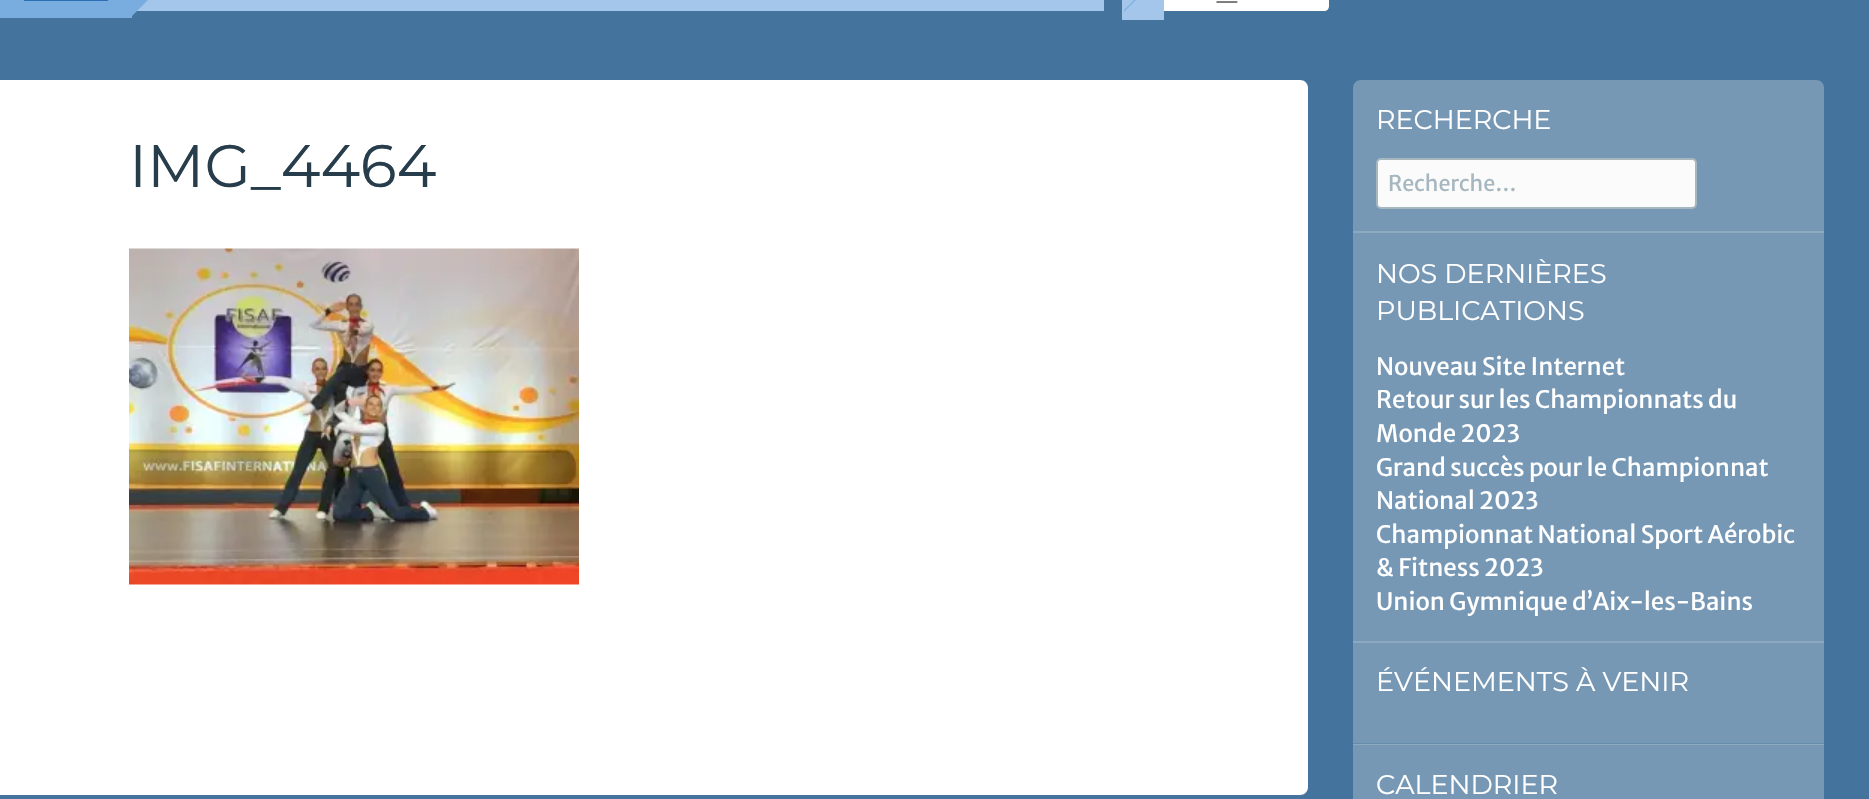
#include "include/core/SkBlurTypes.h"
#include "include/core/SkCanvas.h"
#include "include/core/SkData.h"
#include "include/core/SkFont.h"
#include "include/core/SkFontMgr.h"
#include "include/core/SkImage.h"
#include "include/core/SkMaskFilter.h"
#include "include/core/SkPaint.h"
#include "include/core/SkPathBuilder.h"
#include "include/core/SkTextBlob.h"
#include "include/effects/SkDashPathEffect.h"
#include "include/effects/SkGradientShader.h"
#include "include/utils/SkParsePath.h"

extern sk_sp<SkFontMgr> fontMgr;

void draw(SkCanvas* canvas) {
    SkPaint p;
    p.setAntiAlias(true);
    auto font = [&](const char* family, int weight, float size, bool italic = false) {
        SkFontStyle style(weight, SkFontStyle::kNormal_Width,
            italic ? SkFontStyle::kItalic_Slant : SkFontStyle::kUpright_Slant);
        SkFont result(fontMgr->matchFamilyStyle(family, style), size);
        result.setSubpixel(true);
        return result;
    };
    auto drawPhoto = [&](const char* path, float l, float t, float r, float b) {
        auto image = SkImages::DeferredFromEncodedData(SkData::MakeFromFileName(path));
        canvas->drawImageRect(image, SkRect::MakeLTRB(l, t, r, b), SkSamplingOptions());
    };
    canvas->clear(0xFF44749D);
    {
        const struct { float l, t, r, b; SkColor color; } items[] = {
            {1353, 743, 1824, 744, 0xFF658CAD},
            {0, 0, 132, 18, 0xFF79ADE0},
            {24, 0, 108, 1, 0xFF2B70B4},
            {137, 0, 1104, 11, 0xFFA3C6EA},
        };
        for (auto [l, t, r, b, color] : items) {
            p.setColor(color);
            canvas->drawRect(SkRect::MakeLTRB(l, t, r, b), p);
        }
    }
    p.setColor(0xFF79ADE0);
    canvas->drawPath(SkPathBuilder().moveTo(132, 16).lineTo(132, -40).lineTo(160, -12).close().detach(), p);
    p.setColor(0xFFA3C6EA);
    canvas->drawRect(SkRect::MakeLTRB(1122, 0, 1164, 20), p);
    p.setColor(0xFF82B2E2);
    canvas->drawPath(SkPathBuilder().moveTo(1124, 12).lineTo(1124, -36).lineTo(1148, -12).close().detach(), p);
    p.setColor(0xFFA3C6EA);
    canvas->drawPath(SkPathBuilder().moveTo(1122, 12).lineTo(1122, -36).lineTo(1146, -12).close().detach(), p);
    p.setColor(0xFFFFFFFF);
    canvas->drawPath(SkPathBuilder().moveTo(1170, -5).lineTo(1324, -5).cubicTo(1327, -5, 1329, -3, 1329, 0).lineTo(1329, 6).cubicTo(1329, 9, 1327, 11, 1324, 11).lineTo(1170, 11).close().detach(), p);
    auto font1 = font("Merriweather Sans", 400, 24);
    p.setColor(0xFF6D6D6D);
    canvas->drawString("_", 1217, -2, font1, p);
    p.setColor(0xFFFFFFFF);
    canvas->drawRect(SkRect::MakeLTRB(1164, 0, 1170, 11), p);
    canvas->drawPath(SkPathBuilder().moveTo(0, 80).lineTo(1300, 80).cubicTo(1304.5f, 80, 1308, 83.5f, 1308, 88).lineTo(1308, 787).cubicTo(1308, 791.5f, 1304.5f, 795, 1300, 795).lineTo(0, 795).close().detach(), p);
    auto font2 = font("Montserrat", 100, 60);
    p.setColor(0xFF283D4B);
    canvas->drawString("IMG_4464", 129, 187, font2, p);
    drawPhoto("media/1.png", 129, 248, 579, 585);
    p.setColor(0xFF7698B5);
    canvas->drawPath(SkPathBuilder().moveTo(1361, 80).lineTo(1816, 80).cubicTo(1820.5f, 80, 1824, 83.5f, 1824, 88).lineTo(1824, 231).lineTo(1353, 231).lineTo(1353, 88).cubicTo(1353, 83.5f, 1356.5f, 80, 1361, 80).close().detach(), p);
    auto font3 = font("Montserrat", 100, 27);
    p.setColor(0xFFFFFFFF);
    canvas->drawString("RECHERCHE", 1376, 129, font3, p);
    p.setColor(0xFFFBFBFB);
    canvas->drawRoundRect(SkRect::MakeLTRB(1377, 159, 1696, 208), 4, 4, p);
    p.setStyle(SkPaint::kStroke_Style);
    p.setStrokeWidth(2);
    p.setColor(0xFFA6B7C0);
    canvas->drawRoundRect(SkRect::MakeLTRB(1377, 159, 1696, 208), 4, 4, p);
    auto font4 = font("Merriweather Sans", 400, 21.5f);
    p.setStyle(SkPaint::kFill_Style);
    canvas->drawString("Recherche…", 1388, 191, font4, p);
    p.setColor(0xFF7698B5);
    canvas->drawRect(SkRect::MakeLTRB(1353, 233, 1824, 641), p);
    p.setColor(0xFF8DA9C0);
    canvas->drawRect(SkRect::MakeLTRB(1353, 231, 1824, 233), p);
    p.setColor(0xFFFFFFFF);
    canvas->drawString("NOS DERNIÈRES", 1376, 283, font3, p);
    canvas->drawString("PUBLICATIONS", 1376, 320, font3, p);
    {
        const struct { const char* s; float x, y; } items[] = {
            {"Nouveau Site Internet", 1376, 375},
            {"Retour sur les Championnats du", 1376, 408},
            {"Monde 2023", 1376, 442},
            {"Grand succès pour le Championnat", 1376, 476},
            {"National 2023", 1376, 509},
            {"Championnat National Sport Aérobic", 1376, 543},
            {"& Fitness 2023", 1376, 576},
            {"Union Gymnique d’Aix-les-Bains", 1376, 610},
        };
        for (auto [s, x, y] : items) {
            canvas->drawString(s, x, y, font1, p);
        }
    }
    p.setColor(0xFF7698B5);
    canvas->drawRect(SkRect::MakeLTRB(1353, 643, 1824, 743), p);
    p.setColor(0xFF8DA9C0);
    canvas->drawRect(SkRect::MakeLTRB(1353, 641, 1824, 643), p);
    p.setColor(0xFFFFFFFF);
    canvas->drawString("ÉVÉNEMENTS À VENIR", 1376, 691, font3, p);
    p.setColor(0xFF7698B5);
    canvas->drawRect(SkRect::MakeLTRB(1353, 745, 1824, 799), p);
    p.setColor(0xFF8DA9C0);
    canvas->drawRect(SkRect::MakeLTRB(1353, 744, 1824, 745), p);
    p.setColor(0xFFFFFFFF);
    canvas->drawString("CALENDRIER", 1376, 794, font3, p);
}
